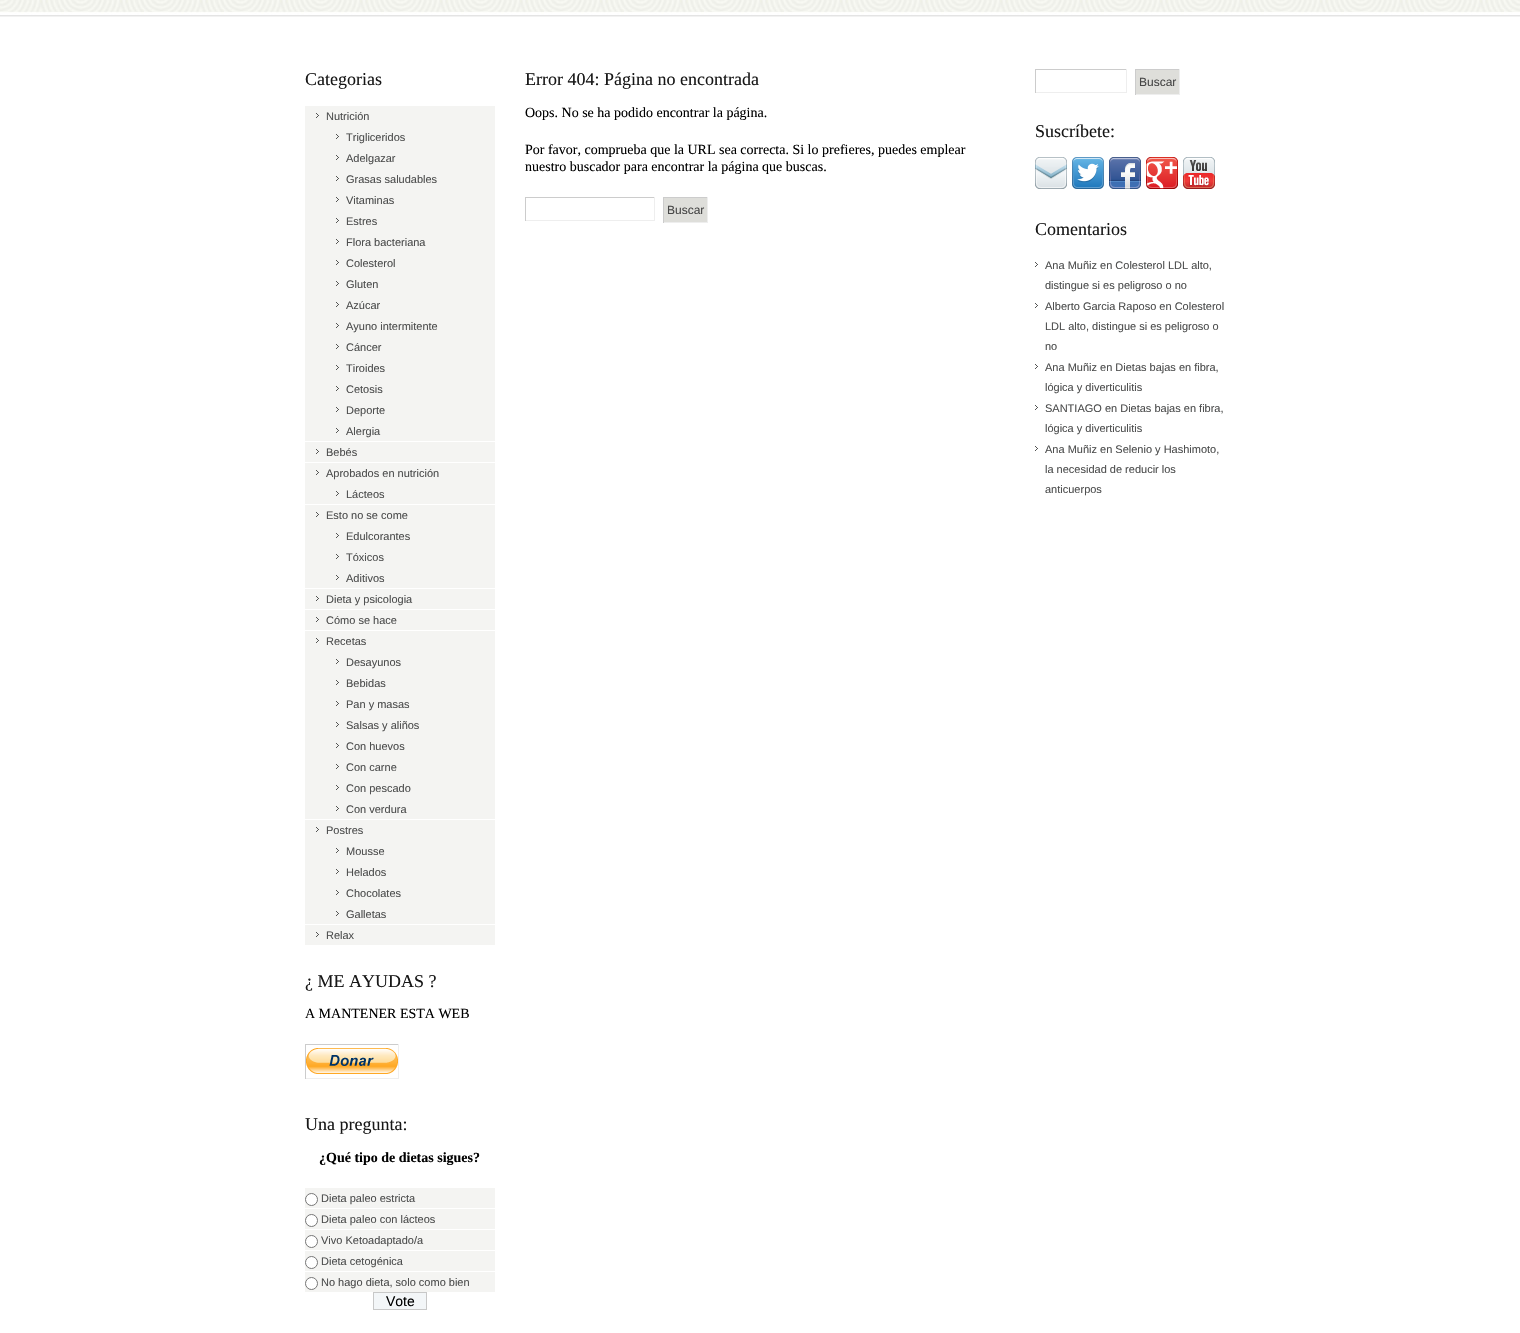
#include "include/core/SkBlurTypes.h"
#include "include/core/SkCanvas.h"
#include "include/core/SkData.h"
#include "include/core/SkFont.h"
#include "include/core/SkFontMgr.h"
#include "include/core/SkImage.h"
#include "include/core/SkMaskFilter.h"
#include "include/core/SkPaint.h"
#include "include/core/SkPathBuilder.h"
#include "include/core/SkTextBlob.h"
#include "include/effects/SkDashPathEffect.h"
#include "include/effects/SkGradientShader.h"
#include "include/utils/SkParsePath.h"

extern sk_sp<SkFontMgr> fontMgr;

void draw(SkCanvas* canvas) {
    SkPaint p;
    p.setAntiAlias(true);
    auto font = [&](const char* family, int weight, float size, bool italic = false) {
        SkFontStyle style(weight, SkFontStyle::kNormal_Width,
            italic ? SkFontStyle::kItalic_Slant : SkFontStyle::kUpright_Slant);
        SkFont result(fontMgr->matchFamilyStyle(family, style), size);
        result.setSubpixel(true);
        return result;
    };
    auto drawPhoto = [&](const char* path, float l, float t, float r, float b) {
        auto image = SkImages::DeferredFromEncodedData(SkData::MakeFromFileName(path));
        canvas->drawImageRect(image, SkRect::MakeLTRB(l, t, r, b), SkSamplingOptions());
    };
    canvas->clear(0xFFFFFFFF);
    drawPhoto("media/1.png", 0, 0, 1520, 17);
    auto font1 = font("Liberation Serif", 400, 18);
    p.setColor(0xFF171717);
    canvas->drawString("Categorias", 305, 85, font1, p);
    p.setColor(0xFFF4F4F2);
    canvas->drawRect(SkRect::MakeLTRB(305, 106, 495, 441), p);
    drawPhoto("media/2.png", 316, 113, 319, 118);
    auto font2 = font("Liberation Sans", 400, 11);
    p.setColor(0xFF4D4E4E);
    canvas->drawString("Nutrición", 326, 120, font2, p);
    drawPhoto("media/2.png", 336, 134, 339, 139);
    canvas->drawString("Trigliceridos", 346, 141, font2, p);
    drawPhoto("media/2.png", 336, 155, 339, 160);
    canvas->drawString("Adelgazar", 346, 162, font2, p);
    drawPhoto("media/2.png", 336, 176, 339, 181);
    canvas->drawString("Grasas saludables", 346, 183, font2, p);
    drawPhoto("media/2.png", 336, 197, 339, 202);
    canvas->drawString("Vitaminas", 346, 204, font2, p);
    drawPhoto("media/2.png", 336, 218, 339, 223);
    canvas->drawString("Estres", 346, 225, font2, p);
    drawPhoto("media/2.png", 336, 239, 339, 244);
    canvas->drawString("Flora bacteriana", 346, 246, font2, p);
    drawPhoto("media/2.png", 336, 260, 339, 265);
    canvas->drawString("Colesterol", 346, 267, font2, p);
    drawPhoto("media/2.png", 336, 281, 339, 286);
    canvas->drawString("Gluten", 346, 288, font2, p);
    drawPhoto("media/2.png", 336, 302, 339, 307);
    canvas->drawString("Azúcar", 346, 309, font2, p);
    drawPhoto("media/2.png", 336, 323, 339, 328);
    canvas->drawString("Ayuno intermitente", 346, 330, font2, p);
    drawPhoto("media/2.png", 336, 344, 339, 349);
    canvas->drawString("Cáncer", 346, 351, font2, p);
    drawPhoto("media/2.png", 336, 365, 339, 370);
    canvas->drawString("Tiroides", 346, 372, font2, p);
    drawPhoto("media/2.png", 336, 386, 339, 391);
    canvas->drawString("Cetosis", 346, 393, font2, p);
    drawPhoto("media/2.png", 336, 407, 339, 412);
    canvas->drawString("Deporte", 346, 414, font2, p);
    drawPhoto("media/2.png", 336, 428, 339, 433);
    canvas->drawString("Alergia", 346, 435, font2, p);
    p.setColor(0xFFF4F4F2);
    canvas->drawRect(SkRect::MakeLTRB(305, 442, 495, 462), p);
    drawPhoto("media/2.png", 316, 449, 319, 454);
    p.setColor(0xFF4D4E4E);
    canvas->drawString("Bebés", 326, 456, font2, p);
    p.setColor(0xFFF4F4F2);
    canvas->drawRect(SkRect::MakeLTRB(305, 463, 495, 504), p);
    drawPhoto("media/2.png", 316, 470, 319, 475);
    p.setColor(0xFF4D4E4E);
    canvas->drawString("Aprobados en nutrición", 326, 477, font2, p);
    drawPhoto("media/2.png", 336, 491, 339, 496);
    canvas->drawString("Lácteos", 346, 498, font2, p);
    p.setColor(0xFFF4F4F2);
    canvas->drawRect(SkRect::MakeLTRB(305, 505, 495, 588), p);
    drawPhoto("media/2.png", 316, 512, 319, 517);
    p.setColor(0xFF4D4E4E);
    canvas->drawString("Esto no se come", 326, 519, font2, p);
    drawPhoto("media/2.png", 336, 533, 339, 538);
    canvas->drawString("Edulcorantes", 346, 540, font2, p);
    drawPhoto("media/2.png", 336, 554, 339, 559);
    canvas->drawString("Tóxicos", 346, 561, font2, p);
    drawPhoto("media/2.png", 336, 575, 339, 580);
    canvas->drawString("Aditivos", 346, 582, font2, p);
    p.setColor(0xFFF4F4F2);
    canvas->drawRect(SkRect::MakeLTRB(305, 589, 495, 609), p);
    drawPhoto("media/2.png", 316, 596, 319, 601);
    p.setColor(0xFF4D4E4E);
    canvas->drawString("Dieta y psicologia", 326, 603, font2, p);
    p.setColor(0xFFF4F4F2);
    canvas->drawRect(SkRect::MakeLTRB(305, 610, 495, 630), p);
    drawPhoto("media/2.png", 316, 617, 319, 622);
    p.setColor(0xFF4D4E4E);
    canvas->drawString("Cómo se hace", 326, 624, font2, p);
    p.setColor(0xFFF4F4F2);
    canvas->drawRect(SkRect::MakeLTRB(305, 631, 495, 819), p);
    drawPhoto("media/2.png", 316, 638, 319, 643);
    p.setColor(0xFF4D4E4E);
    canvas->drawString("Recetas", 326, 645, font2, p);
    drawPhoto("media/2.png", 336, 659, 339, 664);
    canvas->drawString("Desayunos", 346, 666, font2, p);
    drawPhoto("media/2.png", 336, 680, 339, 685);
    canvas->drawString("Bebidas", 346, 687, font2, p);
    drawPhoto("media/2.png", 336, 701, 339, 706);
    canvas->drawString("Pan y masas", 346, 708, font2, p);
    drawPhoto("media/2.png", 336, 722, 339, 727);
    canvas->drawString("Salsas y aliños", 346, 729, font2, p);
    drawPhoto("media/2.png", 336, 743, 339, 748);
    canvas->drawString("Con huevos", 346, 750, font2, p);
    drawPhoto("media/2.png", 336, 764, 339, 769);
    canvas->drawString("Con carne", 346, 771, font2, p);
    drawPhoto("media/2.png", 336, 785, 339, 790);
    canvas->drawString("Con pescado", 346, 792, font2, p);
    drawPhoto("media/2.png", 336, 806, 339, 811);
    canvas->drawString("Con verdura", 346, 813, font2, p);
    p.setColor(0xFFF4F4F2);
    canvas->drawRect(SkRect::MakeLTRB(305, 820, 495, 924), p);
    drawPhoto("media/2.png", 316, 827, 319, 832);
    p.setColor(0xFF4D4E4E);
    canvas->drawString("Postres", 326, 834, font2, p);
    drawPhoto("media/2.png", 336, 848, 339, 853);
    canvas->drawString("Mousse", 346, 855, font2, p);
    drawPhoto("media/2.png", 336, 869, 339, 874);
    canvas->drawString("Helados", 346, 876, font2, p);
    drawPhoto("media/2.png", 336, 890, 339, 895);
    canvas->drawString("Chocolates", 346, 897, font2, p);
    drawPhoto("media/2.png", 336, 911, 339, 916);
    canvas->drawString("Galletas", 346, 918, font2, p);
    p.setColor(0xFFF4F4F2);
    canvas->drawRect(SkRect::MakeLTRB(305, 925, 495, 945), p);
    drawPhoto("media/2.png", 316, 932, 319, 937);
    p.setColor(0xFF4D4E4E);
    canvas->drawString("Relax", 326, 939, font2, p);
    p.setColor(0xFF171717);
    canvas->drawString("¿ ME AYUDAS ?", 305, 987, font1, p);
    auto font3 = font("Liberation Serif", 400, 14);
    p.setColor(0xFF000000);
    canvas->drawString("A MANTENER ESTA WEB", 305, 1018, font3, p);
    {
        const struct { float l, t, r, b; SkColor color; } items[] = {
            {305, 1044, 399, 1045, 0xFFCCCCCC},
            {398, 1044, 399, 1079, 0xFFEEEEEE},
            {305, 1078, 399, 1079, 0xFFEEEEEE},
            {305, 1044, 306, 1079, 0xFFCCCCCC},
        };
        for (auto [l, t, r, b, color] : items) {
            p.setColor(color);
            canvas->drawRect(SkRect::MakeLTRB(l, t, r, b), p);
        }
    }
    drawPhoto("media/3.png", 306, 1048, 398, 1074);
    p.setColor(0xFF171717);
    canvas->drawString("Una pregunta:", 305, 1130, font1, p);
    auto font4 = font("Liberation Serif", 700, 14);
    p.setColor(0xFF000000);
    canvas->drawString("¿Qué tipo de dietas sigues?", 319, 1162, font4, p);
    p.setColor(0xFFF4F4F2);
    canvas->drawRect(SkRect::MakeLTRB(305, 1188, 495, 1208), p);
    p.setColor(0xFFFFFFFF);
    canvas->drawCircle(311.5f, 1199.5f, 6, p);
    p.setStyle(SkPaint::kStroke_Style);
    p.setStrokeWidth(1);
    p.setColor(0xFF767676);
    canvas->drawCircle(311.5f, 1199.5f, 6, p);
    p.setStyle(SkPaint::kFill_Style);
    p.setColor(0xFF4D4E4E);
    canvas->drawString("Dieta paleo estricta", 321, 1202, font2, p);
    p.setColor(0xFFF4F4F2);
    canvas->drawRect(SkRect::MakeLTRB(305, 1209, 495, 1229), p);
    p.setColor(0xFFFFFFFF);
    canvas->drawCircle(311.5f, 1220.5f, 6, p);
    p.setStyle(SkPaint::kStroke_Style);
    p.setColor(0xFF767676);
    canvas->drawCircle(311.5f, 1220.5f, 6, p);
    p.setStyle(SkPaint::kFill_Style);
    p.setColor(0xFF4D4E4E);
    canvas->drawString("Dieta paleo con lácteos", 321, 1223, font2, p);
    p.setColor(0xFFF4F4F2);
    canvas->drawRect(SkRect::MakeLTRB(305, 1230, 495, 1250), p);
    p.setColor(0xFFFFFFFF);
    canvas->drawCircle(311.5f, 1241.5f, 6, p);
    p.setStyle(SkPaint::kStroke_Style);
    p.setColor(0xFF767676);
    canvas->drawCircle(311.5f, 1241.5f, 6, p);
    p.setStyle(SkPaint::kFill_Style);
    p.setColor(0xFF4D4E4E);
    canvas->drawString("Vivo Ketoadaptado/a", 321, 1244, font2, p);
    p.setColor(0xFFF4F4F2);
    canvas->drawRect(SkRect::MakeLTRB(305, 1251, 495, 1271), p);
    p.setColor(0xFFFFFFFF);
    canvas->drawCircle(311.5f, 1262.5f, 6, p);
    p.setStyle(SkPaint::kStroke_Style);
    p.setColor(0xFF767676);
    canvas->drawCircle(311.5f, 1262.5f, 6, p);
    p.setStyle(SkPaint::kFill_Style);
    p.setColor(0xFF4D4E4E);
    canvas->drawString("Dieta cetogénica", 321, 1265, font2, p);
    p.setColor(0xFFF4F4F2);
    canvas->drawRect(SkRect::MakeLTRB(305, 1272, 495, 1292), p);
    p.setColor(0xFFFFFFFF);
    canvas->drawCircle(311.5f, 1283.5f, 6, p);
    p.setStyle(SkPaint::kStroke_Style);
    p.setColor(0xFF767676);
    canvas->drawCircle(311.5f, 1283.5f, 6, p);
    p.setStyle(SkPaint::kFill_Style);
    p.setColor(0xFF4D4E4E);
    canvas->drawString("No hago dieta, solo como bien", 321, 1286, font2, p);
    p.setColor(0xFFF3F6F8);
    canvas->drawRect(SkRect::MakeLTRB(373.5f, 1292.5f, 426.5f, 1309.5f), p);
    p.setStyle(SkPaint::kStroke_Style);
    p.setColor(0xFFC8C8C8);
    canvas->drawRect(SkRect::MakeLTRB(373.5f, 1292.5f, 426.5f, 1309.5f), p);
    auto font5 = font("Liberation Sans", 400, 14);
    p.setStyle(SkPaint::kFill_Style);
    p.setColor(0xFF000000);
    canvas->drawString("Vote", 386, 1306, font5, p);
    p.setColor(0xFF171717);
    canvas->drawString("Error 404: Página no encontrada", 525, 85, font1, p);
    p.setColor(0xFF000000);
    {
        const struct { const char* s; float x, y; } items[] = {
            {"Oops. No se ha podido encontrar la página.", 525, 117},
            {"Por favor, comprueba que la URL sea correcta. Si lo prefieres, puedes emplear", 525, 154},
            {"nuestro buscador para encontrar la página que buscas.", 525, 171},
        };
        for (auto [s, x, y] : items) {
            canvas->drawString(s, x, y, font3, p);
        }
    }
    {
        const struct { float l, t, r, b; SkColor color; } items[] = {
            {525, 197, 655, 198, 0xFFCCCCCC},
            {654, 197, 655, 221, 0xFFEEEEEE},
            {525, 220, 655, 221, 0xFFEEEEEE},
            {525, 197, 526, 221, 0xFFCCCCCC},
            {664, 198, 707, 222, 0xFFDEDEDA},
            {663, 197, 708, 198, 0xFFCCCCCC},
            {707, 197, 708, 223, 0xFFEEEEEE},
            {663, 222, 708, 223, 0xFFEEEEEE},
            {663, 197, 664, 223, 0xFFCCCCCC},
        };
        for (auto [l, t, r, b, color] : items) {
            p.setColor(color);
            canvas->drawRect(SkRect::MakeLTRB(l, t, r, b), p);
        }
    }
    auto font6 = font("Liberation Sans", 400, 12);
    p.setColor(0xFF474747);
    canvas->drawString("Buscar", 667, 214, font6, p);
    {
        const struct { float l, t, r, b; SkColor color; } items[] = {
            {1035, 69, 1127, 70, 0xFFCCCCCC},
            {1126, 69, 1127, 93, 0xFFEEEEEE},
            {1035, 92, 1127, 93, 0xFFEEEEEE},
            {1035, 69, 1036, 93, 0xFFCCCCCC},
            {1136, 70, 1179, 94, 0xFFDEDEDA},
            {1135, 69, 1180, 70, 0xFFCCCCCC},
            {1179, 69, 1180, 95, 0xFFEEEEEE},
            {1135, 94, 1180, 95, 0xFFEEEEEE},
            {1135, 69, 1136, 95, 0xFFCCCCCC},
        };
        for (auto [l, t, r, b, color] : items) {
            p.setColor(color);
            canvas->drawRect(SkRect::MakeLTRB(l, t, r, b), p);
        }
    }
    p.setColor(0xFF474747);
    canvas->drawString("Buscar", 1139, 86, font6, p);
    p.setColor(0xFF171717);
    canvas->drawString("Suscríbete:", 1035, 137, font1, p);
    drawPhoto("media/4.png", 1035, 157, 1067, 189);
    drawPhoto("media/5.png", 1072, 157, 1104, 189);
    drawPhoto("media/6.png", 1109, 157, 1141, 189);
    drawPhoto("media/7.png", 1146, 157, 1178, 189);
    drawPhoto("media/8.png", 1183, 157, 1215, 189);
    canvas->drawString("Comentarios", 1035, 235, font1, p);
    drawPhoto("media/9.png", 1035, 262, 1038, 267);
    p.setColor(0xFF4D4E4E);
    canvas->drawString("Ana Muñiz en Colesterol LDL alto,", 1045, 269, font2, p);
    canvas->drawString("distingue si es peligroso o no", 1045, 289, font2, p);
    drawPhoto("media/9.png", 1035, 303, 1038, 308);
    {
        const struct { const char* s; float x, y; } items[] = {
            {"Alberto Garcia Raposo en Colesterol", 1045, 310},
            {"LDL alto, distingue si es peligroso o", 1045, 330},
            {"no", 1045, 350},
        };
        for (auto [s, x, y] : items) {
            canvas->drawString(s, x, y, font2, p);
        }
    }
    drawPhoto("media/9.png", 1035, 364, 1038, 369);
    canvas->drawString("Ana Muñiz en Dietas bajas en fibra,", 1045, 371, font2, p);
    canvas->drawString("lógica y diverticulitis", 1045, 391, font2, p);
    drawPhoto("media/9.png", 1035, 405, 1038, 410);
    canvas->drawString("SANTIAGO en Dietas bajas en fibra,", 1045, 412, font2, p);
    canvas->drawString("lógica y diverticulitis", 1045, 432, font2, p);
    drawPhoto("media/9.png", 1035, 446, 1038, 451);
    {
        const struct { const char* s; float x, y; } items[] = {
            {"Ana Muñiz en Selenio y Hashimoto,", 1045, 453},
            {"la necesidad de reducir los", 1045, 473},
            {"anticuerpos", 1045, 493},
        };
        for (auto [s, x, y] : items) {
            canvas->drawString(s, x, y, font2, p);
        }
    }
}
